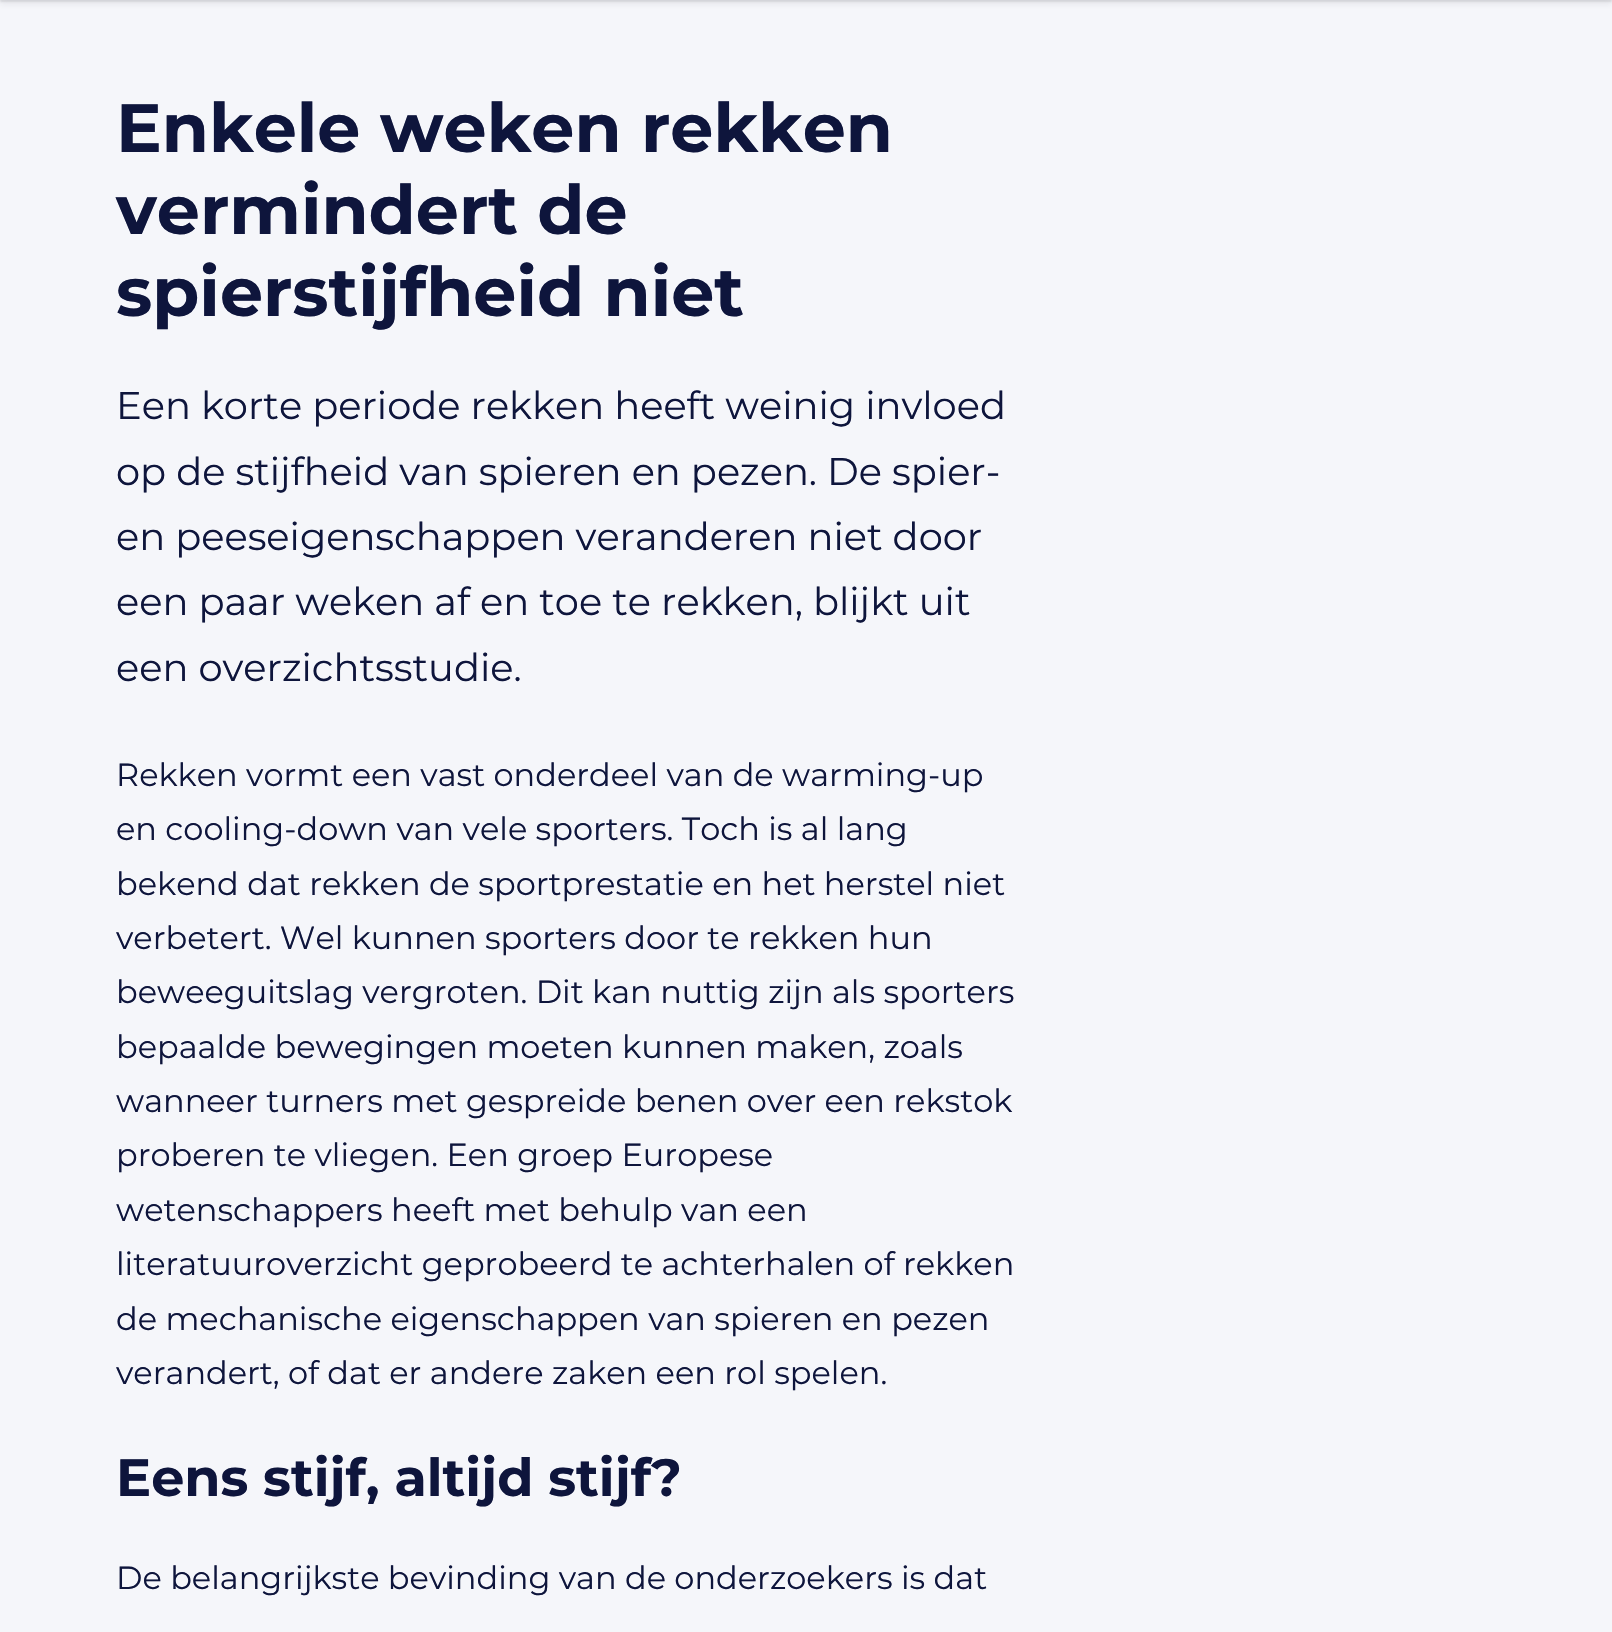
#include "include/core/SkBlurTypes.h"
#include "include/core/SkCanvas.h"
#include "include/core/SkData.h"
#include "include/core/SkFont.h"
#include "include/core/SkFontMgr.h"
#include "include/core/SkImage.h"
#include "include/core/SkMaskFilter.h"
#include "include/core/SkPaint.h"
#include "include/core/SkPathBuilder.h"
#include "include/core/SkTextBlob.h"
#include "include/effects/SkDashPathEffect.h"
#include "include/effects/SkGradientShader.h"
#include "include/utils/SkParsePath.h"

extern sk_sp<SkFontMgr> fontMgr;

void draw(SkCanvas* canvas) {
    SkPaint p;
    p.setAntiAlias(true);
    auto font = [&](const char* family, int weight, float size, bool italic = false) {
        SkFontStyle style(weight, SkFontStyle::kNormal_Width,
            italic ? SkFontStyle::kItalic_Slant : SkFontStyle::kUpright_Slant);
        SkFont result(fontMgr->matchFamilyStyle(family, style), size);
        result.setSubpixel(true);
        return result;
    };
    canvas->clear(0xFFF5F6FA);
    p.setColor(0x1A282C35);
    p.setMaskFilter(SkMaskFilter::MakeBlur(kNormal_SkBlurStyle, 1));
    canvas->drawRect(SkRect::MakeLTRB(0, -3, 1612, 2), p);
    p.setMaskFilter(nullptr);
    p.setColor(0x14282C35);
    p.setMaskFilter(SkMaskFilter::MakeBlur(kNormal_SkBlurStyle, 3));
    canvas->drawRect(SkRect::MakeLTRB(0, -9, 1612, 4), p);
    p.setMaskFilter(nullptr);
    auto font1 = font("Montserrat", 700, 68.25f);
    p.setColor(0xFF0E153C);
    {
        const struct { const char* s; float x, y; } items[] = {
            {"Enkele weken rekken", 116, 152},
            {"vermindert de", 116, 234},
            {"spierstijfheid niet", 116, 316},
        };
        for (auto [s, x, y] : items) {
            canvas->drawString(s, x, y, font1, p);
        }
    }
    auto font2 = font("Montserrat", 400, 38.4f);
    {
        const struct { const char* s; float x, y; } items[] = {
            {"Een korte periode rekken heeft weinig invloed", 116, 419},
            {"op de stijfheid van spieren en pezen. De spier-", 116, 485},
            {"en peeseigenschappen veranderen niet door", 116, 550},
            {"een paar weken af en toe te rekken, blijkt uit", 116, 615},
            {"een overzichtsstudie.", 116, 681},
        };
        for (auto [s, x, y] : items) {
            canvas->drawString(s, x, y, font2, p);
        }
    }
    auto font3 = font("Montserrat", 400, 32);
    {
        const struct { const char* s; float x, y; } items[] = {
            {"Rekken vormt een vast onderdeel van de warming-up", 116, 786},
            {"en cooling-down van vele sporters. Toch is al lang", 116, 840},
            {"bekend dat rekken de sportprestatie en het herstel niet", 116, 895},
            {"verbetert. Wel kunnen sporters door te rekken hun", 116, 949},
            {"beweeguitslag vergroten. Dit kan nuttig zijn als sporters", 116, 1003},
            {"bepaalde bewegingen moeten kunnen maken, zoals", 116, 1058},
            {"wanneer turners met gespreide benen over een rekstok", 116, 1112},
            {"proberen te vliegen. Een groep Europese", 116, 1166},
            {"wetenschappers heeft met behulp van een", 116, 1221},
            {"literatuuroverzicht geprobeerd te achterhalen of rekken", 116, 1275},
            {"de mechanische eigenschappen van spieren en pezen", 116, 1330},
            {"verandert, of dat er andere zaken een rol spelen.", 116, 1384},
        };
        for (auto [s, x, y] : items) {
            canvas->drawString(s, x, y, font3, p);
        }
    }
    auto font4 = font("Montserrat", 700, 52.4f);
    canvas->drawString("Eens stijf, altijd stijf?", 116, 1496, font4, p);
    canvas->drawString("De belangrijkste bevinding van de onderzoekers is dat", 116, 1589, font3, p);
}
